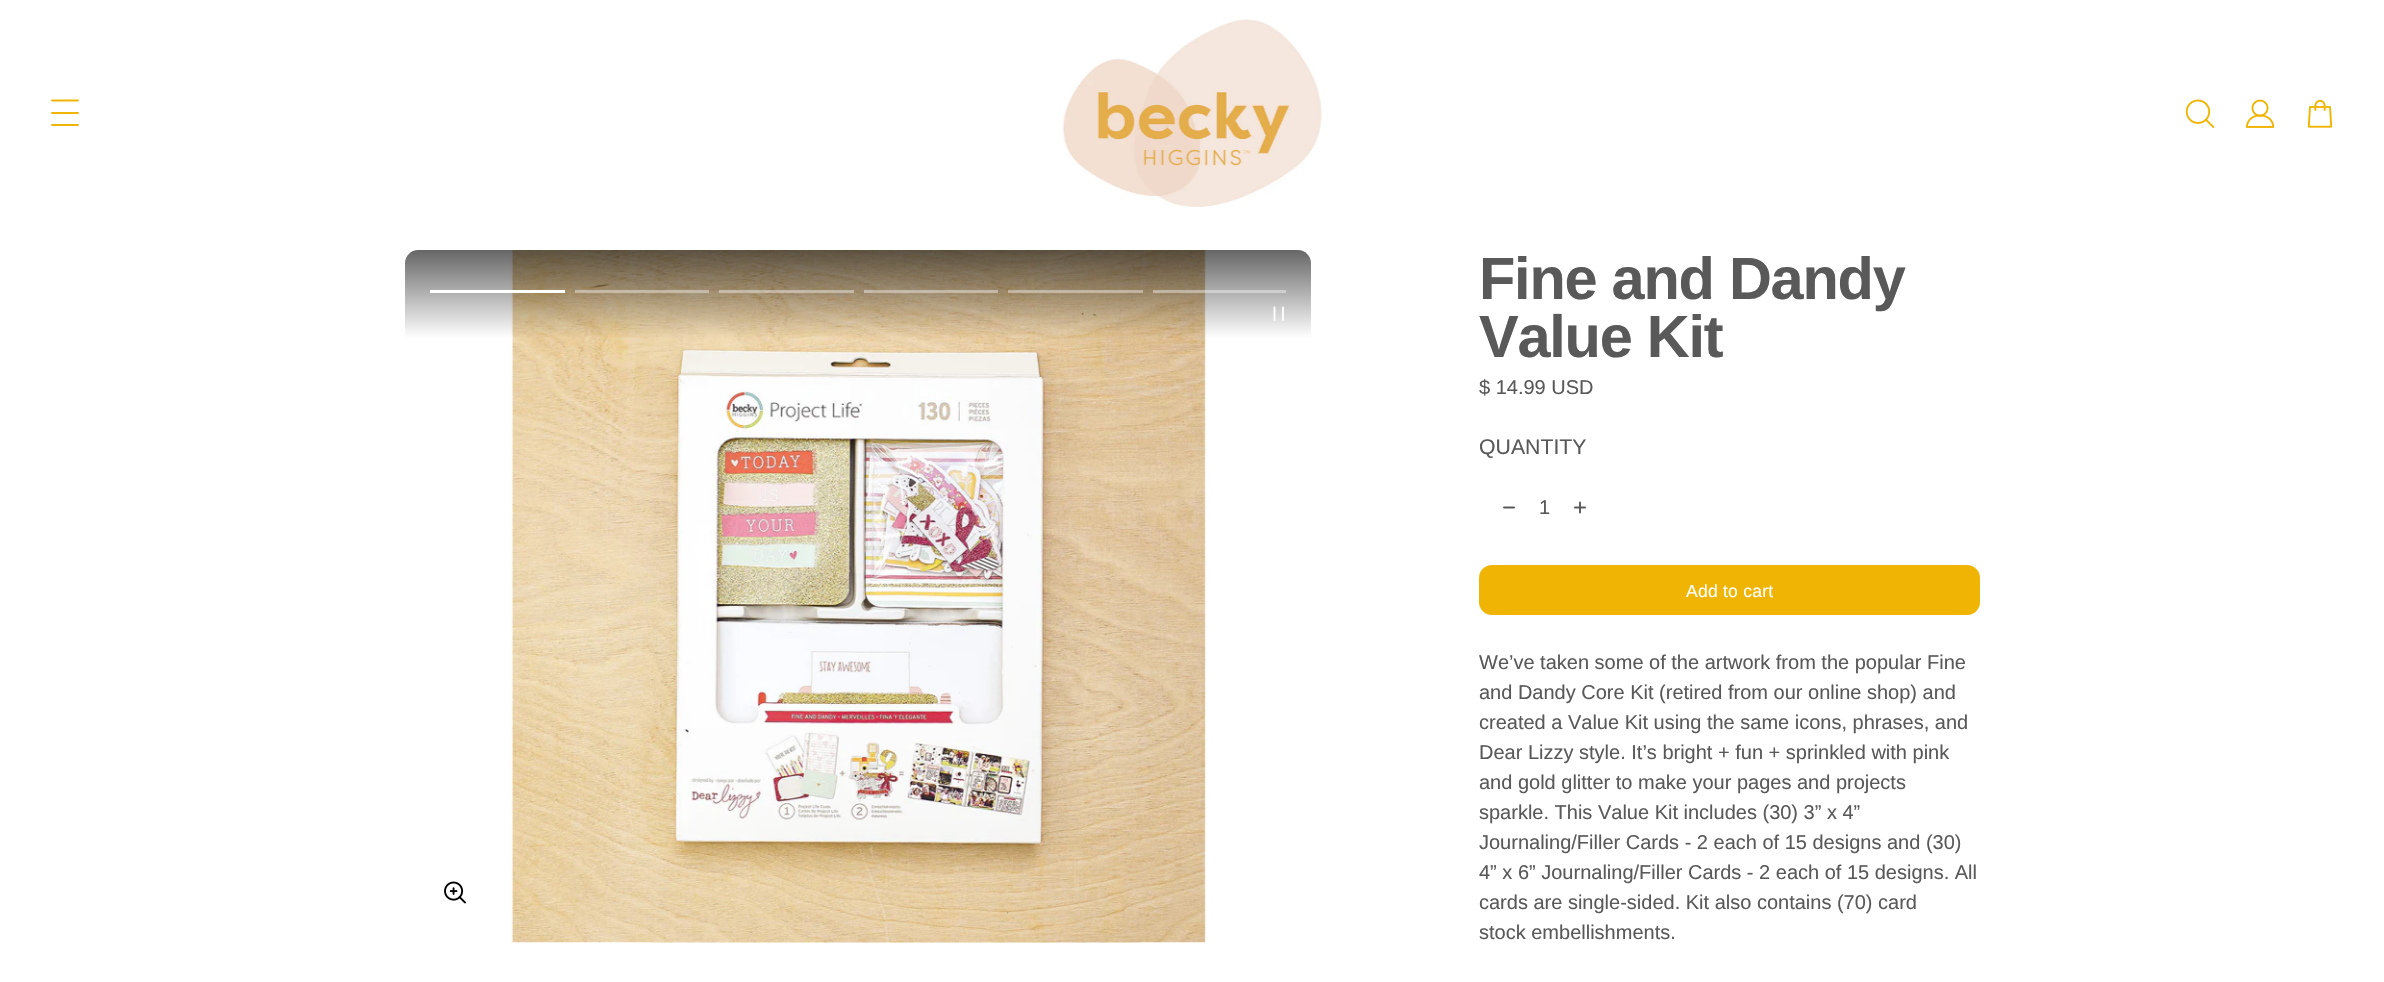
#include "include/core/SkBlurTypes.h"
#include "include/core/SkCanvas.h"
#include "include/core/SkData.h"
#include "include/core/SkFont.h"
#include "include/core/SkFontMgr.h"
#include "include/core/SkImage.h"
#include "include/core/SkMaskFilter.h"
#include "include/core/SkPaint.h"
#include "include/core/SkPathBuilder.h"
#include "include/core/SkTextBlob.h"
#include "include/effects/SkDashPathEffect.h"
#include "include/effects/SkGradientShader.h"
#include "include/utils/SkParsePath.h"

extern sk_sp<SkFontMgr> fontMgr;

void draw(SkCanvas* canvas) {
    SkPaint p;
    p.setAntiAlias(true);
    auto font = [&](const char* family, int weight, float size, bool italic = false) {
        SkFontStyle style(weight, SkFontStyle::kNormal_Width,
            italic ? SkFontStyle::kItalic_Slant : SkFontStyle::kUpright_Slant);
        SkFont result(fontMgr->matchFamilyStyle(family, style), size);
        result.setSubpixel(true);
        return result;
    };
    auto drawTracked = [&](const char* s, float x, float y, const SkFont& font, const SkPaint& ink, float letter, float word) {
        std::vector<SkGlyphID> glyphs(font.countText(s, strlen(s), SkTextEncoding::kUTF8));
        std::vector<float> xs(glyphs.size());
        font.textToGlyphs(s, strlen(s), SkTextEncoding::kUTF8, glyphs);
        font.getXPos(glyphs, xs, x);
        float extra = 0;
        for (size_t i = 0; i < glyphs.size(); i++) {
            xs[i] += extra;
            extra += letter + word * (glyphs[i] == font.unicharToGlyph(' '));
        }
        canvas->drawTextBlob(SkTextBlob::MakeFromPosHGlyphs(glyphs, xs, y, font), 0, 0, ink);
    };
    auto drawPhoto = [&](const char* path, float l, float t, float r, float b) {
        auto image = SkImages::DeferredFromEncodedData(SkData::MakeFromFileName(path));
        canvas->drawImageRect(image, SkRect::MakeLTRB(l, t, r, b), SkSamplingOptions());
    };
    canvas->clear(0xFFFFFFFF);
    p.setStyle(SkPaint::kStroke_Style);
    p.setStrokeWidth(1.9f);
    p.setStrokeCap(SkPaint::kRound_Cap);
    p.setStrokeJoin(SkPaint::kRound_Join);
    p.setColor(0xFFF0B504);
    canvas->drawPath(SkPathBuilder().moveTo(52, 113).lineTo(78, 113).moveTo(52, 100.5f).lineTo(78, 100.5f).moveTo(52, 125).lineTo(78, 125).detach(), p);
    drawPhoto("media/1.png", 1062, 19, 1322, 207);
    drawPhoto("media/2.png", 2185, 99, 2215, 128);
    drawPhoto("media/3.png", 2245, 99, 2275, 128);
    drawPhoto("media/4.png", 2307, 99, 2333, 128);
    drawPhoto("media/5.png", 511, 250, 1206, 943);
    p.setStyle(SkPaint::kFill_Style);
    {
        const SkColor colors[] = {0x00000000, 0x99000000};
        const float stops[] = {0, 1};
        const SkPoint ends[] = {{858, 338}, {858, 250}};
        p.setShader(SkGradientShader::MakeLinear(ends, colors, stops, 2, SkTileMode::kClamp));
        p.setAlpha(255);
    }
    canvas->drawPath(SkPathBuilder().moveTo(418, 250).lineTo(1298, 250).cubicTo(1305, 250, 1311, 256, 1311, 263).lineTo(1311, 338).lineTo(405, 338).lineTo(405, 263).cubicTo(405, 256, 411, 250, 418, 250).close().detach(), p);
    p.setShader(nullptr);
    {
        const struct { float l, t, r, b; SkColor color; } items[] = {
            {430, 290, 565, 293, 0xFFFFFFFF},
            {575, 290, 709, 293, 0x66FFFFFF},
            {719, 290, 854, 293, 0x66FFFFFF},
            {864, 290, 998, 293, 0x66FFFFFF},
            {1008, 290, 1143, 293, 0x66FFFFFF},
            {1153, 290, 1286, 293, 0x66FFFFFF},
        };
        for (auto [l, t, r, b, color] : items) {
            p.setColor(color);
            canvas->drawRect(SkRect::MakeLTRB(l, t, r, b), p);
        }
    }
    p.setStyle(SkPaint::kStroke_Style);
    p.setStrokeJoin(SkPaint::kMiter_Join);
    p.setColor(0xFFFFFFFF);
    canvas->drawPath(SkPathBuilder().moveTo(1274.5f, 307.5f).lineTo(1274.5f, 320).moveTo(1283, 307.5f).lineTo(1283, 320).detach(), p);
    drawPhoto("media/6.png", 444, 881, 466, 904);
    auto font1 = font("Liberation Sans", 700, 59.5f);
    p.setStyle(SkPaint::kFill_Style);
    p.setColor(0xFF595959);
    drawTracked("Fine and Dandy", 1479, 299, font1, p, -1.25f, 0);
    drawTracked("Value Kit", 1479, 357, font1, p, -1.25f, 0);
    auto font2 = font("Liberation Sans", 400, 20);
    canvas->drawString("$ 14.99 USD", 1479, 394, font2, p);
    auto font3 = font("Liberation Sans", 400, 21.25f);
    canvas->drawString("QUANTITY", 1479, 454, font3, p);
    p.setStyle(SkPaint::kStroke_Style);
    p.setStrokeJoin(SkPaint::kRound_Join);
    canvas->drawPath(SkPathBuilder().moveTo(1514, 507.5f).lineTo(1504, 507.5f).detach(), p);
    p.setStyle(SkPaint::kFill_Style);
    canvas->drawString("1", 1539, 514, font2, p);
    p.setStyle(SkPaint::kStroke_Style);
    canvas->drawPath(SkPathBuilder().moveTo(1580, 512.5f).lineTo(1580, 502.5f).moveTo(1585, 507.5f).lineTo(1575, 507.5f).detach(), p);
    p.setStyle(SkPaint::kFill_Style);
    p.setColor(0xFFF0B504);
    canvas->drawRoundRect(SkRect::MakeLTRB(1479, 565, 1980, 615), 13, 13, p);
    auto font4 = font("Liberation Sans", 400, 17.5f);
    p.setColor(0xFFFFFFFF);
    drawTracked("Add to cart", 1686, 597, font4, p, 0.25f, 0);
    p.setColor(0xFF595959);
    {
        const struct { const char* s; float x, y; } items[] = {
            {"We’ve taken some of the artwork from the popular Fine", 1479, 669},
            {"and Dandy Core Kit (retired from our online shop) and", 1479, 699},
            {"created a Value Kit using the same icons, phrases, and", 1479, 729},
            {"Dear Lizzy style. It’s bright + fun + sprinkled with pink", 1479, 759},
            {"and gold glitter to make your pages and projects", 1479, 789},
            {"sparkle. This Value Kit includes (30) 3” x 4”", 1479, 819},
            {"Journaling/Filler Cards - 2 each of 15 designs and (30)", 1479, 849},
            {"4” x 6” Journaling/Filler Cards - 2 each of 15 designs. All", 1479, 879},
            {"cards are single-sided. Kit also contains (70) card", 1479, 909},
            {"stock embellishments.", 1479, 939},
        };
        for (auto [s, x, y] : items) {
            canvas->drawString(s, x, y, font2, p);
        }
    }
}
